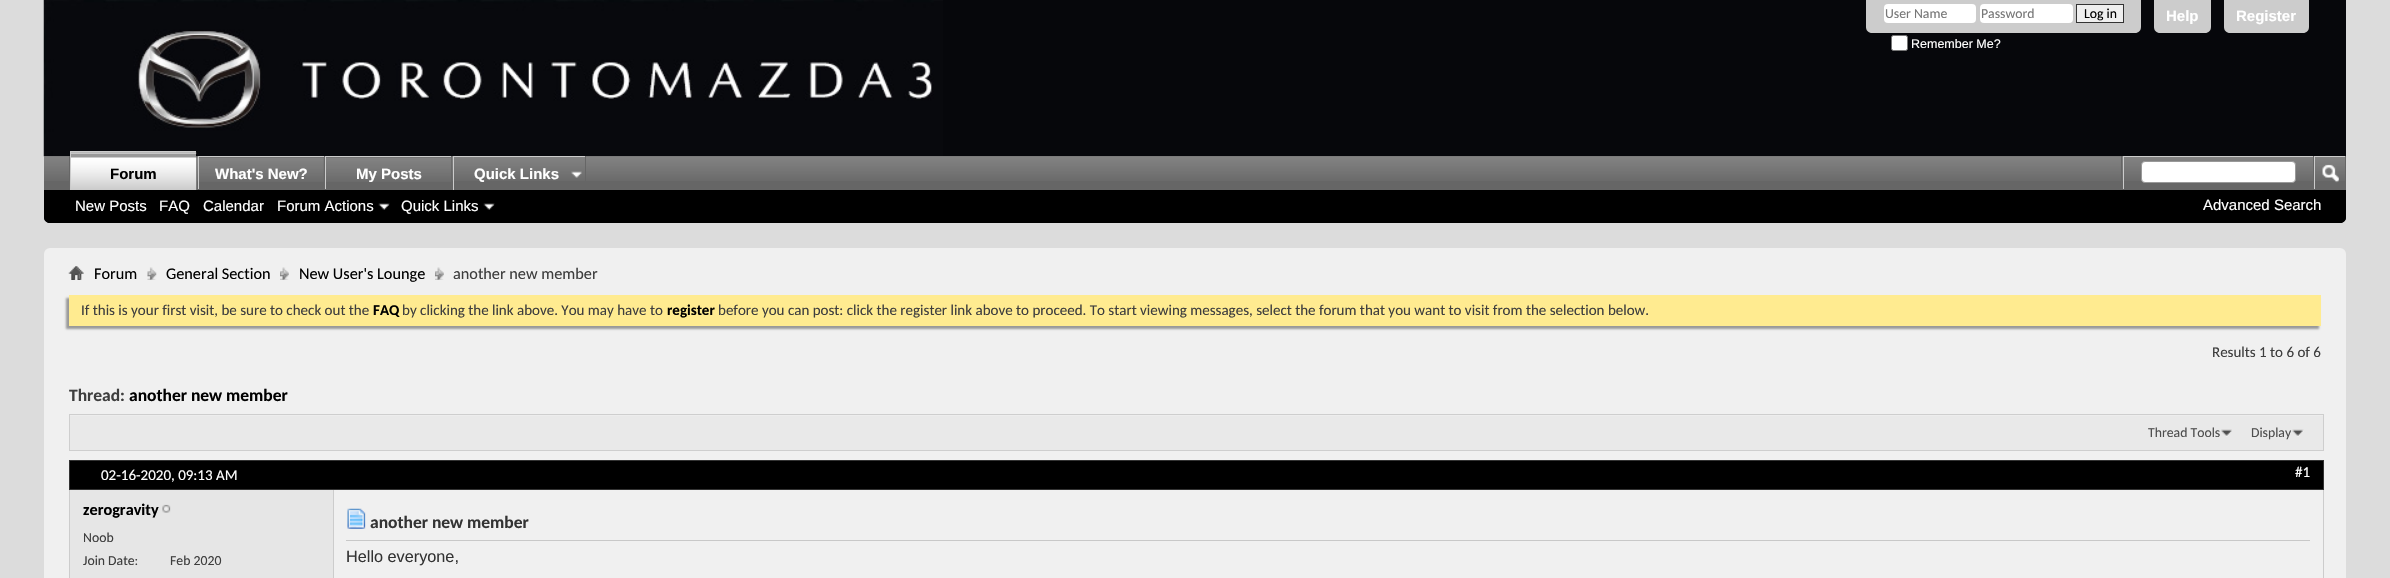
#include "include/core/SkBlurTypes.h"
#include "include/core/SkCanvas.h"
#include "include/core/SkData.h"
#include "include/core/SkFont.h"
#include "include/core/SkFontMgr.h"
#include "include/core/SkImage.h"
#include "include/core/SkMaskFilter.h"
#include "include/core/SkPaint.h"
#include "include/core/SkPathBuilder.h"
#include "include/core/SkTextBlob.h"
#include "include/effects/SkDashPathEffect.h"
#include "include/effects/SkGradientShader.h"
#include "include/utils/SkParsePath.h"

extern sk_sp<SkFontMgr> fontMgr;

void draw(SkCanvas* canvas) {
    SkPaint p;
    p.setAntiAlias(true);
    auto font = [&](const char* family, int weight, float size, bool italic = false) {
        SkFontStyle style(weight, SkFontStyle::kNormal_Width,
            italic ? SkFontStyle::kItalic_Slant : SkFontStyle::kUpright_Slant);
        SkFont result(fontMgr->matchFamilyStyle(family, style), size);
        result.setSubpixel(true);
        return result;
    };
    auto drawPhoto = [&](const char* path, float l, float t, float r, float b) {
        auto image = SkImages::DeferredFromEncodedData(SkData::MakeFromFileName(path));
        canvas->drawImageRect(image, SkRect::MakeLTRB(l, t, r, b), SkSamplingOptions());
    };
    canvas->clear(0xFFDCDCDC);
    p.setColor(0xFF06070B);
    canvas->drawPath(SkPathBuilder().moveTo(44, 0).lineTo(2346, 0).lineTo(2346, 217).cubicTo(2346, 220.5f, 2343.5f, 223, 2340, 223).lineTo(50, 223).cubicTo(46.5f, 223, 44, 220.5f, 44, 217).close().detach(), p);
    drawPhoto("media/1.png", 43, 0, 943, 157);
    p.setColor(0xFFCCCCCC);
    canvas->drawPath(SkPathBuilder().moveTo(1866, 0).lineTo(2141, 0).lineTo(2141, 27).cubicTo(2141, 30.5f, 2138.5f, 33, 2135, 33).lineTo(1872, 33).cubicTo(1868.5f, 33, 1866, 30.5f, 1866, 27).close().detach(), p);
    p.setColor(0xFFFFFFFF);
    canvas->drawRoundRect(SkRect::MakeLTRB(1884, 4, 1976, 23), 4, 4, p);
    auto font1 = font("Carlito", 400, 13.75f);
    p.setColor(0xFF777777);
    canvas->drawString("User Name", 1885, 18, font1, p);
    p.setColor(0xFFFFFFFF);
    canvas->drawRoundRect(SkRect::MakeLTRB(1980, 4, 2073, 23), 4, 4, p);
    p.setColor(0xFF777777);
    canvas->drawString("Password", 1981, 18, font1, p);
    p.setColor(0xFFEFEFEF);
    canvas->drawRect(SkRect::MakeLTRB(2076.5f, 4.5f, 2123.5f, 22.5f), p);
    p.setStyle(SkPaint::kStroke_Style);
    p.setStrokeWidth(1);
    p.setColor(0xFF333333);
    canvas->drawRect(SkRect::MakeLTRB(2076.5f, 4.5f, 2123.5f, 22.5f), p);
    p.setStyle(SkPaint::kFill_Style);
    p.setColor(0xFF000000);
    canvas->drawString("Log in", 2084, 18, font1, p);
    p.setColor(0xFFFFFFFF);
    canvas->drawRoundRect(SkRect::MakeLTRB(1891.5f, 35.5f, 1907.5f, 50.5f), 2, 2, p);
    p.setStyle(SkPaint::kStroke_Style);
    p.setColor(0xFF767676);
    canvas->drawRoundRect(SkRect::MakeLTRB(1891.5f, 35.5f, 1907.5f, 50.5f), 2, 2, p);
    auto font2 = font("Liberation Sans", 400, 12.5f);
    p.setStyle(SkPaint::kFill_Style);
    p.setColor(0xFFFFFFFF);
    canvas->drawString("Remember Me?", 1911, 48, font2, p);
    p.setColor(0xFFCCCCCC);
    canvas->drawPath(SkPathBuilder().moveTo(2154, 0).lineTo(2211, 0).lineTo(2211, 27).cubicTo(2211, 30.5f, 2208.5f, 33, 2205, 33).lineTo(2160, 33).cubicTo(2156.5f, 33, 2154, 30.5f, 2154, 27).close().detach(), p);
    auto font3 = font("Liberation Sans", 700, 15);
    p.setColor(0xFFFFFFFF);
    canvas->drawString("Help", 2166, 21, font3, p);
    p.setColor(0xFFCCCCCC);
    canvas->drawPath(SkPathBuilder().moveTo(2224, 0).lineTo(2309, 0).lineTo(2309, 27).cubicTo(2309, 30.5f, 2306.5f, 33, 2303, 33).lineTo(2230, 33).cubicTo(2226.5f, 33, 2224, 30.5f, 2224, 27).close().detach(), p);
    p.setColor(0xFFFFFFFF);
    canvas->drawString("Register", 2236, 21, font3, p);
    p.setColor(0xFF000000);
    canvas->drawPath(SkPathBuilder().moveTo(44, 156).lineTo(2346, 156).lineTo(2346, 217).cubicTo(2346, 220.5f, 2343.5f, 223, 2340, 223).lineTo(50, 223).cubicTo(46.5f, 223, 44, 220.5f, 44, 217).close().detach(), p);
    p.setColor(0xFF666666);
    canvas->drawRect(SkRect::MakeLTRB(44, 156, 2346, 189), p);
    drawPhoto("media/2.png", 44, 156, 2345, 181);
    {
        const struct { float l, t, r, b; SkColor color; } items[] = {
            {196, 156, 197, 189, 0xFF666666},
            {69, 156, 70, 189, 0xFF666666},
            {324, 156, 325, 190, 0xFF666666},
            {199, 157, 324, 181, 0xFF666666},
        };
        for (auto [l, t, r, b, color] : items) {
            p.setColor(color);
            canvas->drawRect(SkRect::MakeLTRB(l, t, r, b), p);
        }
    }
    drawPhoto("media/6.png", 197, 157, 324, 182);
    {
        const struct { float l, t, r, b; SkColor color; } items[] = {
            {198, 156, 324, 157, 0xFFCCCCCC},
            {198, 156, 199, 190, 0xFFCCCCCC},
            {451, 156, 452, 190, 0xFF666666},
            {325, 156, 451, 157, 0xFFCCCCCC},
            {325, 156, 326, 190, 0xFFCCCCCC},
            {44, 189, 2346, 190, 0xFF666666},
            {71, 152, 196, 190, 0xFF999999},
        };
        for (auto [l, t, r, b, color] : items) {
            p.setColor(color);
            canvas->drawRect(SkRect::MakeLTRB(l, t, r, b), p);
        }
    }
    drawPhoto("media/3.png", 71, 152, 197, 190);
    p.setColor(0xFFCCCCCC);
    canvas->drawRect(SkRect::MakeLTRB(70, 151, 196, 152), p);
    canvas->drawRect(SkRect::MakeLTRB(70, 151, 71, 190), p);
    p.setColor(0xFF000000);
    canvas->drawString("Forum", 110, 179, font3, p);
    auto font4 = font("Liberation Sans", 400, 15);
    p.setColor(0xFFFFFFFF);
    {
        const struct { const char* s; float x, y; } items[] = {
            {"New Posts", 75, 211},
            {"FAQ", 159, 211},
            {"Calendar", 203, 211},
            {"Forum Actions", 277, 211},
        };
        for (auto [s, x, y] : items) {
            canvas->drawString(s, x, y, font4, p);
        }
    }
    drawPhoto("media/4.png", 378, 203, 390, 210);
    canvas->drawString("Quick Links", 401, 211, font4, p);
    drawPhoto("media/5.png", 483, 203, 495, 210);
    canvas->drawString("What's New?", 215, 179, font3, p);
    p.setColor(0xFF666666);
    canvas->drawRect(SkRect::MakeLTRB(326, 157, 451, 181), p);
    drawPhoto("media/7.png", 326, 157, 452, 182);
    p.setColor(0xFFFFFFFF);
    canvas->drawString("My Posts", 356, 179, font3, p);
    p.setColor(0xFF666666);
    canvas->drawRect(SkRect::MakeLTRB(585, 156, 586, 181), p);
    drawPhoto("media/8.png", 571, 171, 582, 178);
    p.setColor(0xFFCCCCCC);
    canvas->drawRect(SkRect::MakeLTRB(453, 156, 585, 157), p);
    canvas->drawRect(SkRect::MakeLTRB(453, 156, 454, 190), p);
    p.setColor(0xFFFFFFFF);
    canvas->drawString("Quick Links", 474, 179, font3, p);
    {
        const struct { float l, t, r, b; SkColor color; } items[] = {
            {2121, 156, 2122, 189, 0xFF666666},
            {2123, 156, 2313, 157, 0xFFCCCCCC},
            {2123, 156, 2124, 189, 0xFFCCCCCC},
        };
        for (auto [l, t, r, b, color] : items) {
            p.setColor(color);
            canvas->drawRect(SkRect::MakeLTRB(l, t, r, b), p);
        }
    }
    p.setColor(0xFFFFFFFF);
    canvas->drawRoundRect(SkRect::MakeLTRB(2141.5f, 161.5f, 2295.5f, 182.5f), 3.5f, 3.5f, p);
    p.setStyle(SkPaint::kStroke_Style);
    p.setColor(0xFF999999);
    canvas->drawRoundRect(SkRect::MakeLTRB(2141.5f, 161.5f, 2295.5f, 182.5f), 3.5f, 3.5f, p);
    p.setStyle(SkPaint::kFill_Style);
    {
        const struct { float l, t, r, b; SkColor color; } items[] = {
            {2313, 156, 2314, 189, 0xFF666666},
            {2314, 156, 2345, 157, 0xFFCCCCCC},
            {2314, 156, 2315, 189, 0xFFCCCCCC},
        };
        for (auto [l, t, r, b, color] : items) {
            p.setColor(color);
            canvas->drawRect(SkRect::MakeLTRB(l, t, r, b), p);
        }
    }
    drawPhoto("media/9.png", 2322, 164, 2339, 183);
    p.setColor(0xFFFFFFFF);
    canvas->drawString("Advanced Search", 2203, 210, font4, p);
    p.setColor(0xFFF0F0F0);
    canvas->drawRoundRect(SkRect::MakeLTRB(44, 248, 2346, 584), 6, 6, p);
    drawPhoto("media/10.png", 68, 266, 84, 280);
    drawPhoto("media/11.png", 147, 267, 157, 280);
    auto font5 = font("Carlito", 400, 16.25f);
    p.setColor(0xFF000000);
    canvas->drawString("Forum", 94, 279, font5, p);
    drawPhoto("media/12.png", 280, 267, 289, 280);
    canvas->drawString("General Section", 166, 279, font5, p);
    drawPhoto("media/12.png", 435, 267, 444, 280);
    canvas->drawString("New User's Lounge", 299, 279, font5, p);
    p.setColor(0xFF3E3E3E);
    canvas->drawString("another new member", 453, 279, font5, p);
    p.setColor(0xFF999999);
    p.setMaskFilter(SkMaskFilter::MakeBlur(kNormal_SkBlurStyle, 1));
    canvas->drawRect(SkRect::MakeLTRB(66, 298, 2319, 329), p);
    p.setMaskFilter(nullptr);
    p.setColor(0xFFFFEB90);
    canvas->drawRect(SkRect::MakeLTRB(69, 295, 2321, 326), p);
    auto font6 = font("Carlito", 400, 15);
    p.setColor(0xFF3E3E3E);
    canvas->drawString("If this is your first visit, be sure to check out the", 81, 315, font6, p);
    auto font7 = font("Carlito", 700, 15);
    p.setColor(0xFF000000);
    canvas->drawString("FAQ", 373, 315, font7, p);
    p.setColor(0xFF3E3E3E);
    canvas->drawString("by clicking the link above. You may have to", 402, 315, font6, p);
    p.setColor(0xFF000000);
    canvas->drawString("register", 667, 315, font7, p);
    p.setColor(0xFF3E3E3E);
    canvas->drawString("before you can post: click the register link above to proceed. To start viewing messages, select the forum that you want to visit from the selection below.", 718, 315, font6, p);
    canvas->drawString("Results 1 to 6 of 6", 2212, 357, font6, p);
    auto font8 = font("Carlito", 700, 17.5f);
    canvas->drawString("Thread:", 69, 401, font8, p);
    p.setColor(0xFF000000);
    canvas->drawString("another new member", 129, 401, font8, p);
    p.setColor(0xFFE9E9E9);
    canvas->drawRect(SkRect::MakeLTRB(70, 416, 2323, 450), p);
    p.setColor(0xFFEDEDED);
    canvas->drawRect(SkRect::MakeLTRB(69, 415, 2323, 416), p);
    p.setStyle(SkPaint::kStroke_Style);
    p.setColor(0xFFCECECE);
    canvas->drawRect(SkRect::MakeLTRB(69.5f, 414.5f, 2323.5f, 450.5f), p);
    drawPhoto("media/13.png", 2221, 429, 2232, 437);
    p.setStyle(SkPaint::kFill_Style);
    p.setColor(0xFF4E4E4E);
    canvas->drawString("Thread Tools", 2148, 437, font1, p);
    drawPhoto("media/14.png", 2292, 429, 2304, 437);
    canvas->drawString("Display", 2251, 437, font1, p);
    p.setStyle(SkPaint::kStroke_Style);
    p.setColor(0xFFCCCCCC);
    canvas->drawRect(SkRect::MakeLTRB(69.5f, 460.5f, 2323.5f, 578.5f), p);
    p.setStyle(SkPaint::kFill_Style);
    p.setColor(0xFF000000);
    canvas->drawRect(SkRect::MakeLTRB(69.5f, 460.5f, 2323.5f, 489.5f), p);
    p.setStyle(SkPaint::kStroke_Style);
    p.setColor(0xFF333333);
    canvas->drawRect(SkRect::MakeLTRB(69.5f, 460.5f, 2323.5f, 489.5f), p);
    p.setStyle(SkPaint::kFill_Style);
    p.setColor(0xFFFFFFFF);
    canvas->drawString("02-16-2020, 09:13 AM", 101, 480, font6, p);
    canvas->drawString("#1", 2295, 477, font6, p);
    p.setColor(0xFFE6E6E6);
    canvas->drawRect(SkRect::MakeLTRB(70, 490, 333, 578), p);
    auto font9 = font("Carlito", 700, 16.25f);
    p.setColor(0xFF000000);
    canvas->drawString("zerogravity", 83, 515, font9, p);
    drawPhoto("media/15.png", 162, 504, 171, 513);
    p.setColor(0xFF3E3E3E);
    {
        const struct { const char* s; float x, y; } items[] = {
            {"Noob", 83, 542},
            {"Join Date:", 83, 565},
            {"Feb 2020", 170, 565},
        };
        for (auto [s, x, y] : items) {
            canvas->drawString(s, x, y, font1, p);
        }
    }
    p.setColor(0xFFCCCCCC);
    canvas->drawRect(SkRect::MakeLTRB(333, 490, 334, 578), p);
    p.setColor(0xFFC8C8C8);
    canvas->drawRect(SkRect::MakeLTRB(346, 540, 2310, 541), p);
    drawPhoto("media/16.png", 347, 508, 366, 529);
    p.setColor(0xFF333333);
    canvas->drawString("another new member", 370, 528, font8, p);
    auto font10 = font("Liberation Sans", 400, 16.25f);
    canvas->drawString("Hello everyone,", 346, 562, font10, p);
}
